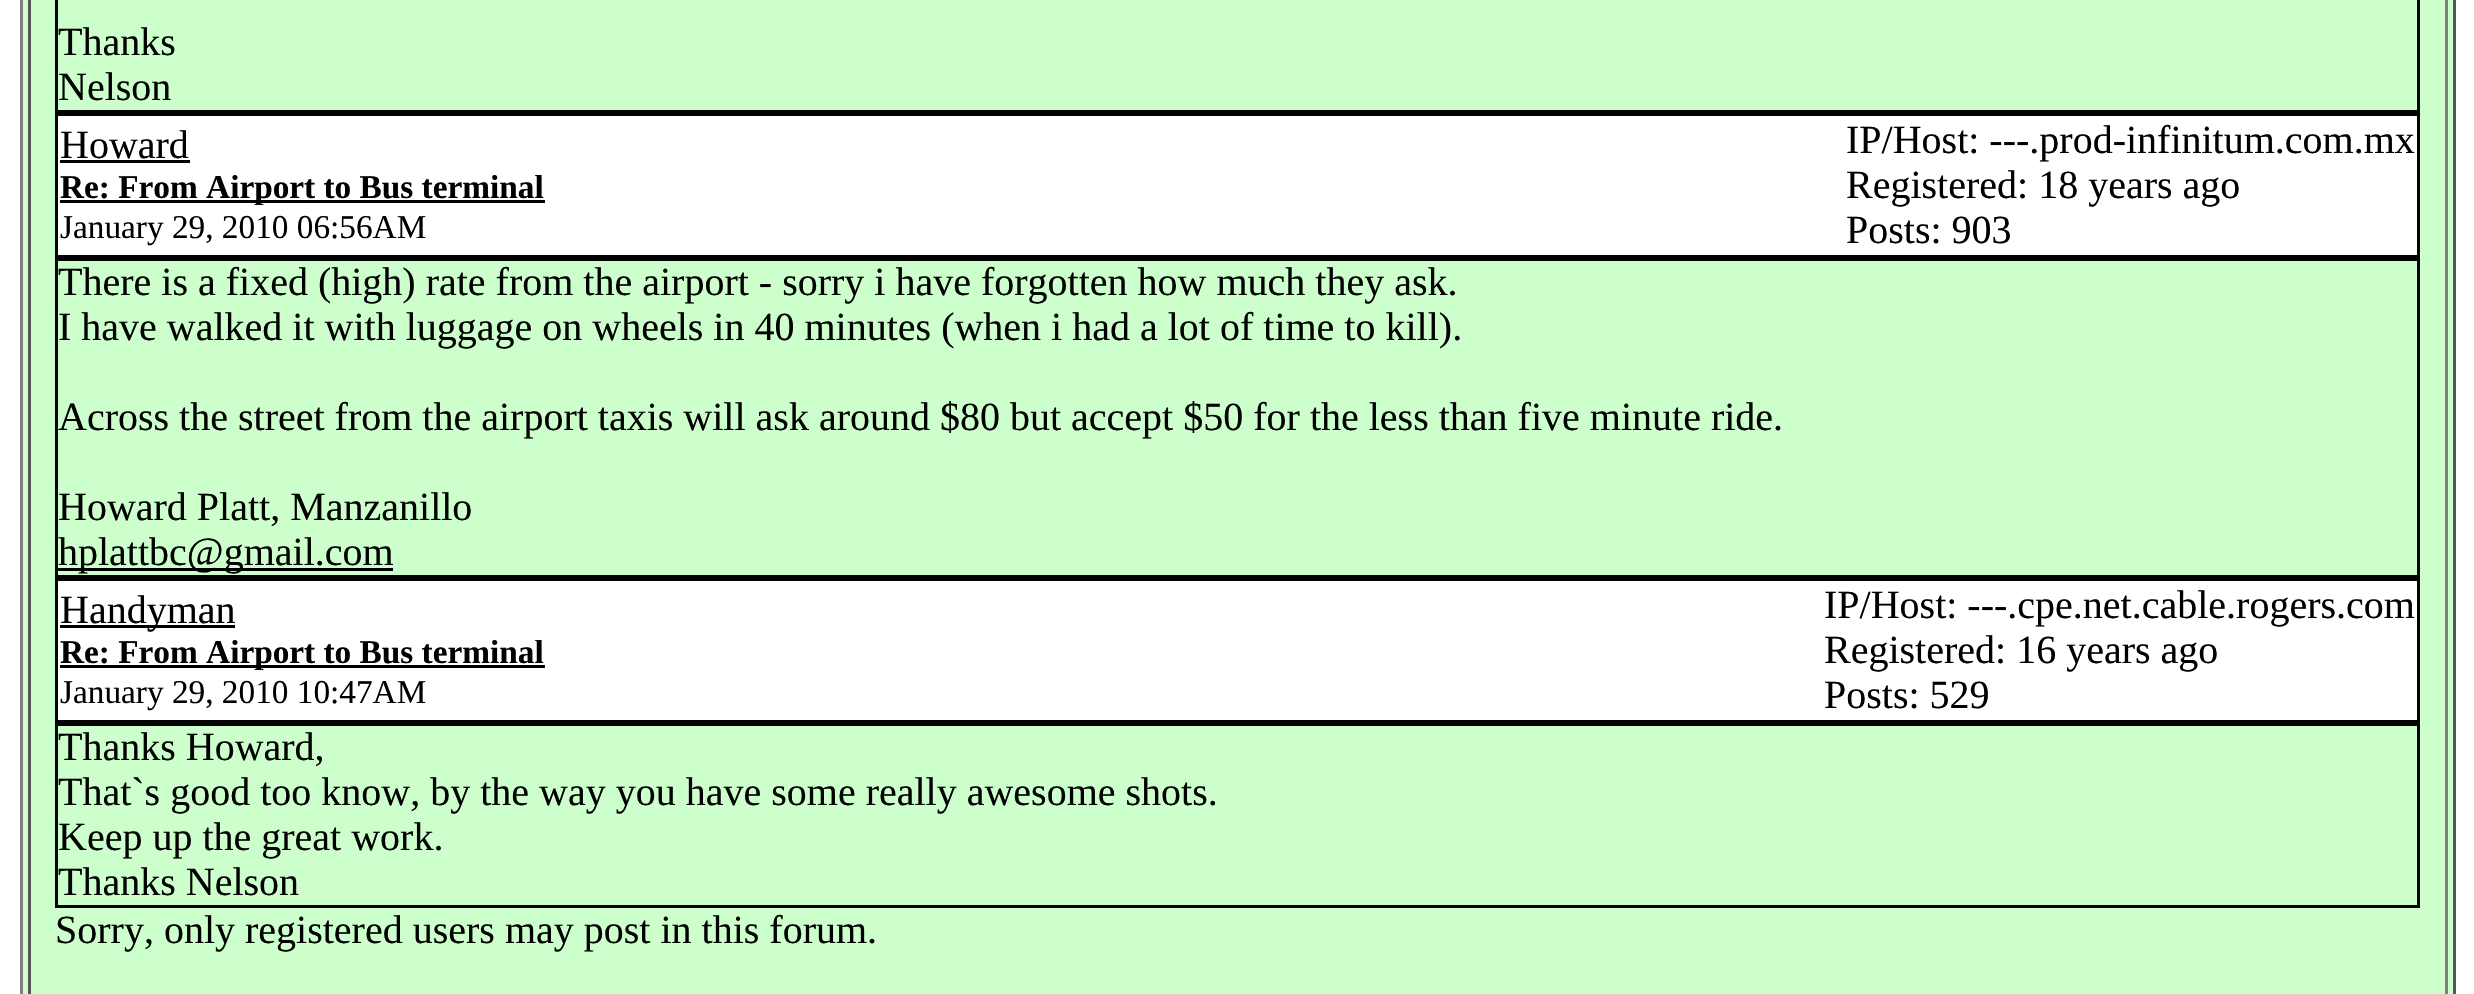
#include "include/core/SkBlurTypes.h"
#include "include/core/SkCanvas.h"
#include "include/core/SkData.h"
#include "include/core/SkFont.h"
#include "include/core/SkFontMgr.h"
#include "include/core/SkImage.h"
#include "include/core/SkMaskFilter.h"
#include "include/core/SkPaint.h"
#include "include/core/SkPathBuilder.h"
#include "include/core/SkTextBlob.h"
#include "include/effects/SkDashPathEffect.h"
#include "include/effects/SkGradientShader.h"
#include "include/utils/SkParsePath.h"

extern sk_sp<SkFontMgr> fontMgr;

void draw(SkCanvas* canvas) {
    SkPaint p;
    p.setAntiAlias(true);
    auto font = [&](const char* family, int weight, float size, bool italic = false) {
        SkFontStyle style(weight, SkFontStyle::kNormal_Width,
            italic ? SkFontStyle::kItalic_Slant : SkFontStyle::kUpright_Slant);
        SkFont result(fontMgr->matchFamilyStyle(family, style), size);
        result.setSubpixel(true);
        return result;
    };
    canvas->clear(0xFFFFFFFF);
    {
        const struct { float l, t, r, b; SkColor color; } items[] = {
            {23, 0, 2453, 994, 0xFFCCFFCC},
            {2453, 0, 2456, 994, 0xFF555555},
            {20, 0, 23, 994, 0xFF808080},
            {2445, 0, 2448, 994, 0xFF808080},
            {28, 0, 31, 994, 0xFF555555},
        };
        for (auto [l, t, r, b, color] : items) {
            p.setColor(color);
            canvas->drawRect(SkRect::MakeLTRB(l, t, r, b), p);
        }
    }
    p.setStyle(SkPaint::kStroke_Style);
    p.setStrokeWidth(3);
    p.setColor(0xFF000000);
    canvas->drawRect(SkRect::MakeLTRB(56.5f, -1.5f, 2418.5f, 111.5f), p);
    auto font1 = font("Liberation Serif", 400, 40);
    p.setStyle(SkPaint::kFill_Style);
    canvas->drawString("Thanks", 58, 55, font1, p);
    canvas->drawString("Nelson", 58, 100, font1, p);
    p.setColor(0xFFFFFFFF);
    canvas->drawRect(SkRect::MakeLTRB(56.5f, 114.5f, 2418.5f, 256.5f), p);
    p.setStyle(SkPaint::kStroke_Style);
    p.setColor(0xFF000000);
    canvas->drawRect(SkRect::MakeLTRB(56.5f, 114.5f, 2418.5f, 256.5f), p);
    p.setStyle(SkPaint::kFill_Style);
    canvas->drawString("Howard", 60, 158, font1, p);
    canvas->drawRect(SkRect::MakeLTRB(60, 160, 190, 163), p);
    canvas->drawRect(SkRect::MakeLTRB(60, 200, 545, 203), p);
    auto font2 = font("Liberation Serif", 700, 33.3f);
    canvas->drawString("Re: From Airport to Bus terminal", 60, 198, font2, p);
    auto font3 = font("Liberation Serif", 400, 33.3f);
    canvas->drawString("January 29, 2010 06:56AM", 60, 238, font3, p);
    {
        const struct { const char* s; float x, y; } items[] = {
            {"IP/Host: ---.prod-infinitum.com.mx", 1846, 153},
            {"Registered: 18 years ago", 1846, 198},
            {"Posts: 903", 1846, 243},
        };
        for (auto [s, x, y] : items) {
            canvas->drawString(s, x, y, font1, p);
        }
    }
    p.setStyle(SkPaint::kStroke_Style);
    canvas->drawRect(SkRect::MakeLTRB(56.5f, 259.5f, 2418.5f, 576.5f), p);
    p.setStyle(SkPaint::kFill_Style);
    {
        const struct { const char* s; float x, y; } items[] = {
            {"There is a fixed (high) rate from the airport - sorry i have forgotten how much they ask.", 58, 295},
            {"I have walked it with luggage on wheels in 40 minutes (when i had a lot of time to kill).", 58, 340},
            {"Across the street from the airport taxis will ask around $80 but accept $50 for the less than five minute ride.", 58, 430},
            {"Howard Platt, Manzanillo", 58, 520},
        };
        for (auto [s, x, y] : items) {
            canvas->drawString(s, x, y, font1, p);
        }
    }
    canvas->drawRect(SkRect::MakeLTRB(58, 568, 393, 571), p);
    canvas->drawString("hplattbc@gmail.com", 58, 565, font1, p);
    p.setColor(0xFFFFFFFF);
    canvas->drawRect(SkRect::MakeLTRB(56.5f, 579.5f, 2418.5f, 721.5f), p);
    p.setStyle(SkPaint::kStroke_Style);
    p.setColor(0xFF000000);
    canvas->drawRect(SkRect::MakeLTRB(56.5f, 579.5f, 2418.5f, 721.5f), p);
    p.setStyle(SkPaint::kFill_Style);
    canvas->drawRect(SkRect::MakeLTRB(60, 625, 235, 628), p);
    canvas->drawString("Handyman", 60, 623, font1, p);
    canvas->drawRect(SkRect::MakeLTRB(60, 665, 545, 668), p);
    canvas->drawString("Re: From Airport to Bus terminal", 60, 663, font2, p);
    canvas->drawString("January 29, 2010 10:47AM", 60, 703, font3, p);
    {
        const struct { const char* s; float x, y; } items[] = {
            {"IP/Host: ---.cpe.net.cable.rogers.com", 1824, 618},
            {"Registered: 16 years ago", 1824, 663},
            {"Posts: 529", 1824, 708},
        };
        for (auto [s, x, y] : items) {
            canvas->drawString(s, x, y, font1, p);
        }
    }
    p.setStyle(SkPaint::kStroke_Style);
    canvas->drawRect(SkRect::MakeLTRB(56.5f, 724.5f, 2418.5f, 906.5f), p);
    p.setStyle(SkPaint::kFill_Style);
    {
        const struct { const char* s; float x, y; } items[] = {
            {"Thanks Howard,", 58, 760},
            {"That`s good too know, by the way you have some really awesome shots.", 58, 805},
            {"Keep up the great work.", 58, 850},
            {"Thanks Nelson", 58, 895},
            {"Sorry, only registered users may post in this forum.", 55, 943},
        };
        for (auto [s, x, y] : items) {
            canvas->drawString(s, x, y, font1, p);
        }
    }
}
